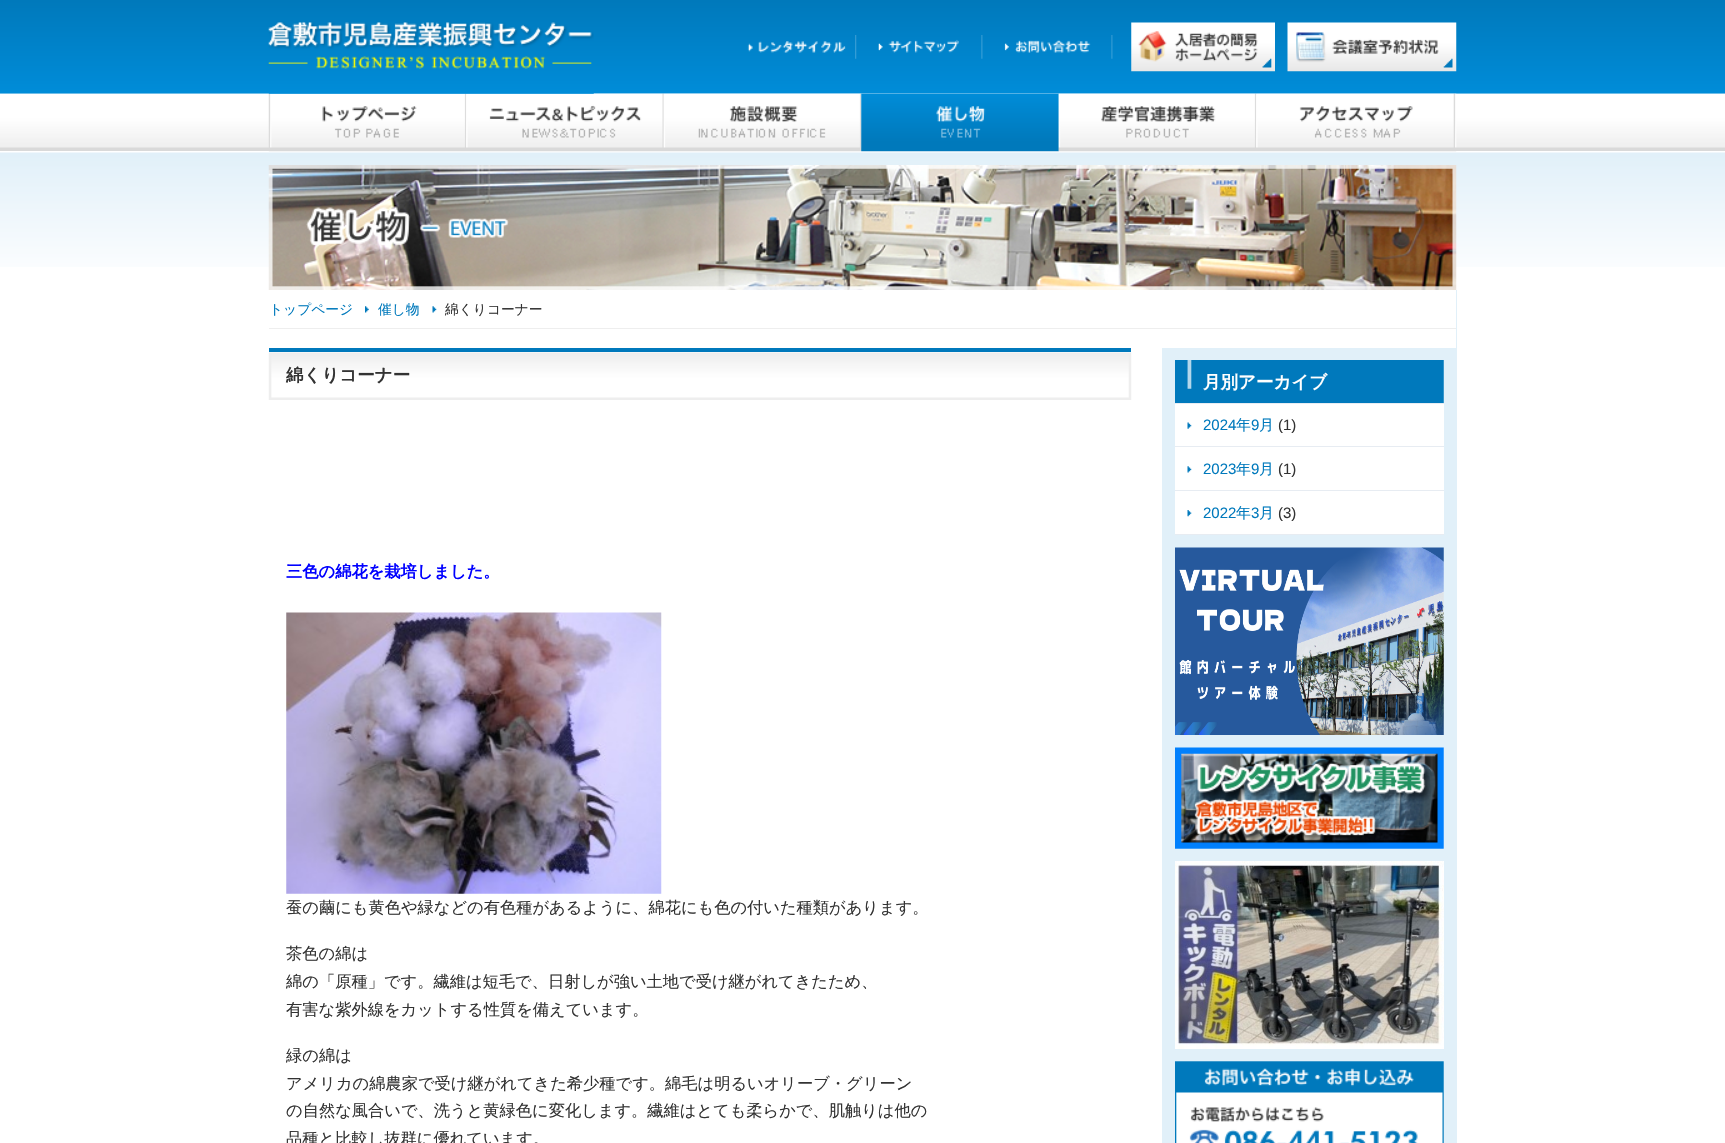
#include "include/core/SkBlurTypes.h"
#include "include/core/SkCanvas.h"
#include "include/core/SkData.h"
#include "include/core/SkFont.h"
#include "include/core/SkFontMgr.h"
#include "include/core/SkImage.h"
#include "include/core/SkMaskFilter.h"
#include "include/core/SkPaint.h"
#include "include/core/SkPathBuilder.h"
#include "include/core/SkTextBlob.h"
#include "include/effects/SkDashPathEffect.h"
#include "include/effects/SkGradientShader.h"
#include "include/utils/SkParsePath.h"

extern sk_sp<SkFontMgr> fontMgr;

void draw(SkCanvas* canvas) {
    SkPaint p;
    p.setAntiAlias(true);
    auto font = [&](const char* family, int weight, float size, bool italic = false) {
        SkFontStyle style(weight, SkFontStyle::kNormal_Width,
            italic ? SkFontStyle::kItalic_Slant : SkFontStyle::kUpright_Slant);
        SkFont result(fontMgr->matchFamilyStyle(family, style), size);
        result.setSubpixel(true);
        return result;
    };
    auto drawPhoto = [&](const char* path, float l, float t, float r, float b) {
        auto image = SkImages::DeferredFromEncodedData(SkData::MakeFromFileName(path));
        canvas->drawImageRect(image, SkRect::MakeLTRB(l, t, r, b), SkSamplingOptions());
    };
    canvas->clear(0xFFFFFFFF);
    drawPhoto("media/1.png", 0, 0, 1725, 94);
    drawPhoto("media/8.png", 0, 93, 1725, 151);
    drawPhoto("media/9.png", 268, 93, 467, 152);
    drawPhoto("media/10.png", 466, 93, 664, 152);
    drawPhoto("media/2.png", 268, 21, 594, 94);
    drawPhoto("media/3.png", 747, 41, 846, 53);
    drawPhoto("media/4.png", 855, 35, 959, 59);
    drawPhoto("media/5.png", 981, 35, 1113, 59);
    drawPhoto("media/6.png", 1131, 22, 1275, 72);
    drawPhoto("media/7.png", 1287, 22, 1457, 72);
    drawPhoto("media/11.png", 663, 93, 862, 152);
    drawPhoto("media/12.png", 861, 93, 1059, 152);
    drawPhoto("media/13.png", 1058, 93, 1257, 152);
    drawPhoto("media/14.png", 1256, 93, 1457, 152);
    drawPhoto("media/15.png", 0, 152, 1725, 267);
    drawPhoto("media/16.png", 268, 165, 1457, 290);
    {
        const struct { float l, t, r, b; SkColor color; } items[] = {
            {1162, 290, 1457, 1143, 0xFFE1F0F9},
            {1162, 290, 1456, 348, 0xFFFFFFFF},
            {269, 328, 1456, 329, 0xFFEEEEEE},
        };
        for (auto [l, t, r, b, color] : items) {
            p.setColor(color);
            canvas->drawRect(SkRect::MakeLTRB(l, t, r, b), p);
        }
    }
    auto font1 = font("WenQuanYi Zen Hei", 500, 13.75f);
    p.setColor(0xFF0079BC);
    canvas->drawString("トップページ", 269, 314, font1, p);
    drawPhoto("media/17.png", 365, 306, 369, 313);
    canvas->drawString("催し物", 378, 314, font1, p);
    drawPhoto("media/18.png", 432, 306, 437, 313);
    p.setColor(0xFF333333);
    canvas->drawString("綿くりコーナー", 445, 314, font1, p);
    drawPhoto("media/19.png", 268, 352, 1132, 400);
    p.setColor(0xFF0079BC);
    canvas->drawRect(SkRect::MakeLTRB(269, 348, 1131, 352), p);
    auto font2 = font("WenQuanYi Zen Hei", 700, 17.5f);
    p.setColor(0xFF333333);
    canvas->drawString("綿くりコーナー", 286, 381, font2, p);
    auto font3 = font("WenQuanYi Zen Hei", 700, 16.25f);
    p.setColor(0xFF0000FF);
    canvas->drawString("三色の綿花を栽培しました。", 286, 577, font3, p);
    drawPhoto("media/20.png", 286, 612, 662, 894);
    auto font4 = font("WenQuanYi Zen Hei", 500, 16.25f);
    p.setColor(0xFF333333);
    {
        const struct { const char* s; float x, y; } items[] = {
            {"蚕の繭にも黄色や緑などの有色種があるように、綿花にも色の付いた種類があります。", 286, 913},
            {"茶色の綿は", 286, 959},
            {"綿の「原種」です。繊維は短毛で、日射しが強い土地で受け継がれてきたため、", 286, 987},
            {"有害な紫外線をカットする性質を備えています。", 286, 1015},
            {"緑の綿は", 286, 1061},
            {"アメリカの綿農家で受け継がれてきた希少種です。綿毛は明るいオリーブ・グリーン", 286, 1089},
            {"の自然な風合いで、洗うと黄緑色に変化します。繊維はとても柔らかで、肌触りは他の", 286, 1116},
            {"品種と比較し抜群に優れています。", 286, 1144},
        };
        for (auto [s, x, y] : items) {
            canvas->drawString(s, x, y, font4, p);
        }
    }
    drawPhoto("media/21.png", 1175, 360, 1444, 403);
    p.setColor(0xFFE7ECF2);
    canvas->drawRect(SkRect::MakeLTRB(1175, 403, 1444, 404), p);
    p.setColor(0xFFFFFFFF);
    canvas->drawString("月別アーカイブ", 1203, 388, font2, p);
    canvas->drawRect(SkRect::MakeLTRB(1175, 404, 1444, 490), p);
    drawPhoto("media/22.png", 1187, 422, 1192, 429);
    p.setColor(0xFFE7ECF2);
    canvas->drawRect(SkRect::MakeLTRB(1175, 446, 1444, 447), p);
    auto font5 = font("Liberation Sans", 400, 15);
    p.setColor(0xFF0079BC);
    canvas->drawString("2024", 1203, 430, font5, p);
    auto font6 = font("WenQuanYi Zen Hei", 500, 15);
    canvas->drawString("年", 1236, 430, font6, p);
    canvas->drawString("9", 1251, 430, font5, p);
    canvas->drawString("月", 1259, 430, font6, p);
    p.setColor(0xFF333333);
    canvas->drawString("(1)", 1278, 430, font5, p);
    drawPhoto("media/18.png", 1187, 466, 1192, 473);
    p.setColor(0xFFE7ECF2);
    canvas->drawRect(SkRect::MakeLTRB(1175, 490, 1444, 491), p);
    p.setColor(0xFF0079BC);
    canvas->drawString("2023", 1203, 474, font5, p);
    canvas->drawString("年", 1236, 474, font6, p);
    canvas->drawString("9", 1251, 474, font5, p);
    canvas->drawString("月", 1259, 474, font6, p);
    p.setColor(0xFF333333);
    canvas->drawString("(1)", 1278, 474, font5, p);
    p.setColor(0xFFFFFFFF);
    canvas->drawRect(SkRect::MakeLTRB(1175, 491, 1444, 534), p);
    drawPhoto("media/23.png", 1187, 510, 1192, 517);
    p.setColor(0xFFE7ECF2);
    canvas->drawRect(SkRect::MakeLTRB(1175, 534, 1444, 535), p);
    p.setColor(0xFF0079BC);
    canvas->drawString("2022", 1203, 518, font5, p);
    canvas->drawString("年", 1236, 518, font6, p);
    canvas->drawString("3", 1251, 518, font5, p);
    canvas->drawString("月", 1259, 518, font6, p);
    p.setColor(0xFF333333);
    canvas->drawString("(3)", 1278, 518, font5, p);
    drawPhoto("media/24.png", 1175, 547, 1444, 735);
    p.setColor(0xFFFFFFFF);
    canvas->drawRect(SkRect::MakeLTRB(1175, 748, 1444, 849), p);
    drawPhoto("media/25.png", 1175, 747, 1444, 849);
    canvas->drawRect(SkRect::MakeLTRB(1175, 861, 1444, 1049), p);
    drawPhoto("media/26.png", 1175, 861, 1444, 1049);
    canvas->drawRect(SkRect::MakeLTRB(1175, 1061, 1444, 1143), p);
    drawPhoto("media/27.png", 1175, 1061, 1444, 1143);
}
